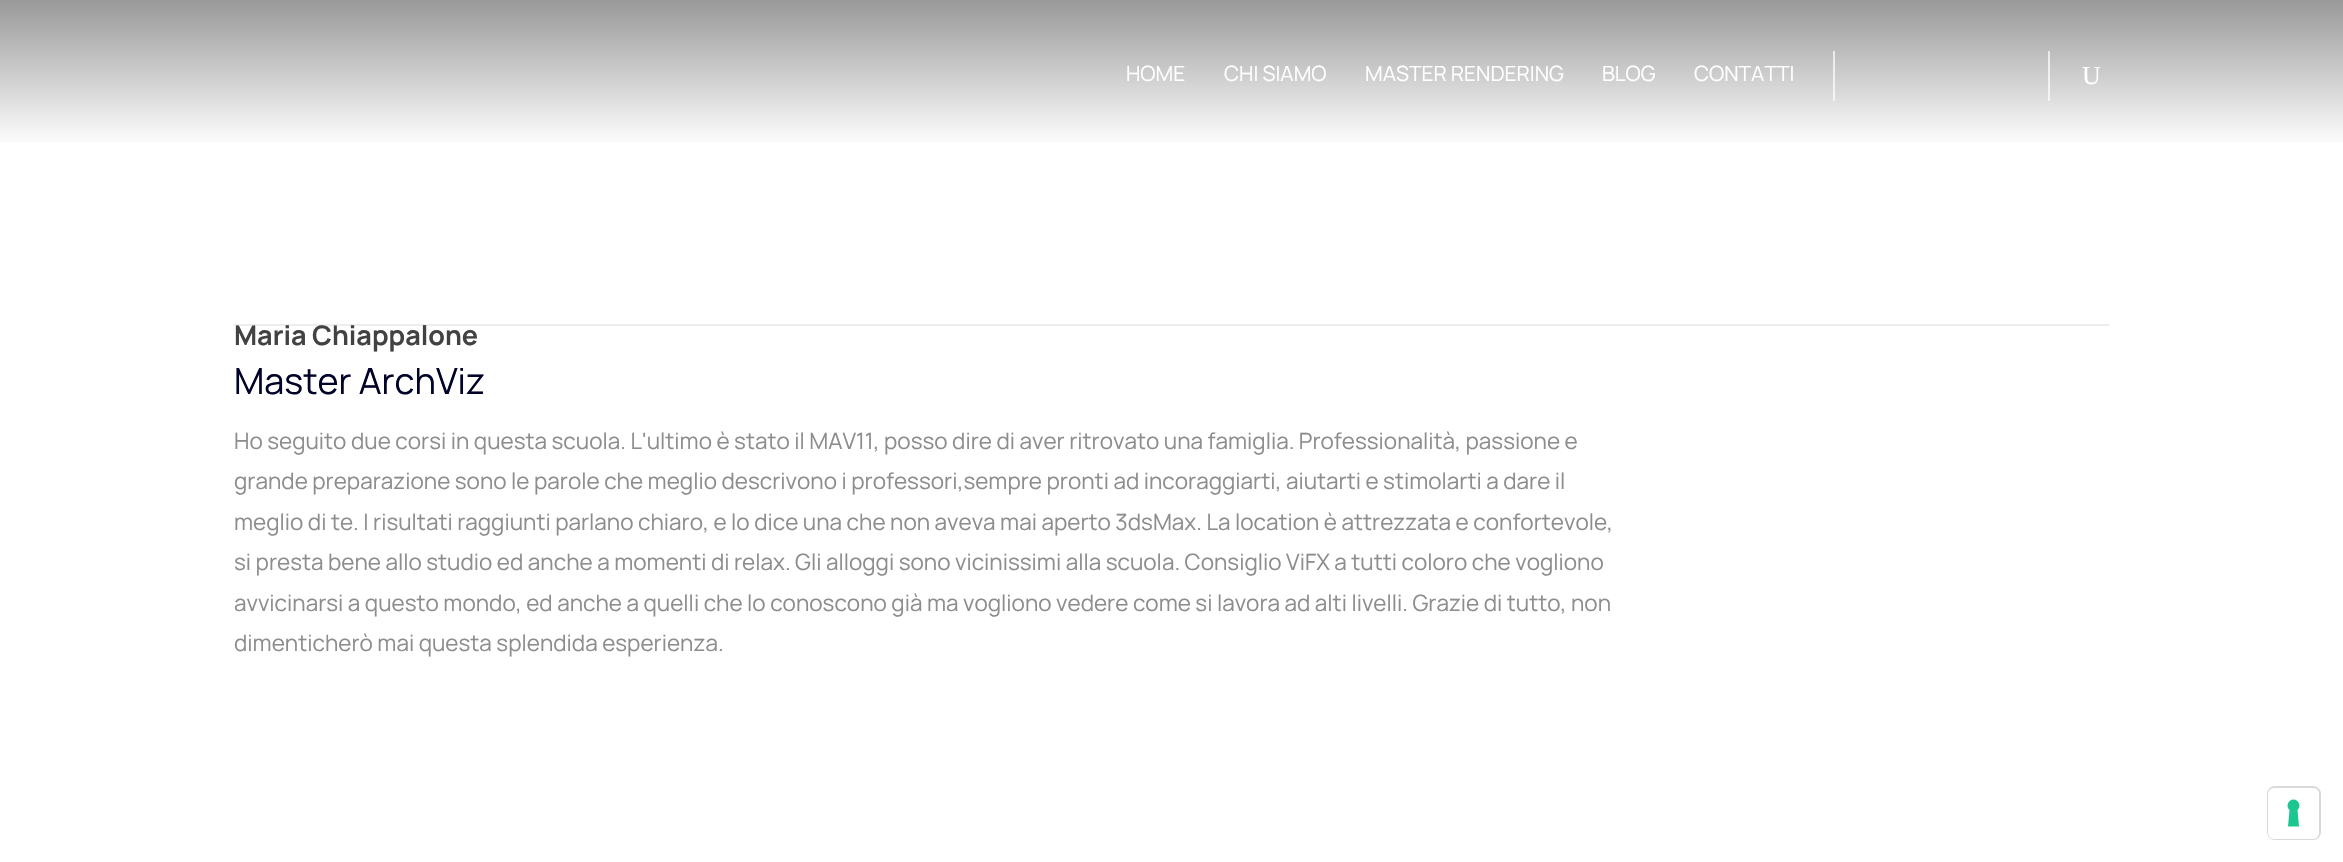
#include "include/core/SkBlurTypes.h"
#include "include/core/SkCanvas.h"
#include "include/core/SkData.h"
#include "include/core/SkFont.h"
#include "include/core/SkFontMgr.h"
#include "include/core/SkImage.h"
#include "include/core/SkMaskFilter.h"
#include "include/core/SkPaint.h"
#include "include/core/SkPathBuilder.h"
#include "include/core/SkTextBlob.h"
#include "include/effects/SkDashPathEffect.h"
#include "include/effects/SkGradientShader.h"
#include "include/utils/SkParsePath.h"

extern sk_sp<SkFontMgr> fontMgr;

void draw(SkCanvas* canvas) {
    SkPaint p;
    p.setAntiAlias(true);
    auto font = [&](const char* family, int weight, float size, bool italic = false) {
        SkFontStyle style(weight, SkFontStyle::kNormal_Width,
            italic ? SkFontStyle::kItalic_Slant : SkFontStyle::kUpright_Slant);
        SkFont result(fontMgr->matchFamilyStyle(family, style), size);
        result.setSubpixel(true);
        return result;
    };
    canvas->clear(0xFFFFFFFF);
    {
        const SkColor colors[] = {0xFF999999, 0xFFFFFFFF};
        const float stops[] = {0, 1};
        const SkPoint ends[] = {{1172, 0}, {1172, 147}};
        p.setShader(SkGradientShader::MakeLinear(ends, colors, stops, 2, SkTileMode::kClamp));
        p.setAlpha(255);
    }
    canvas->drawRect(SkRect::MakeLTRB(0, 0, 2343, 143), p);
    {
        const SkColor colors[] = {0xFFE0E0E0, 0xFFFFFFFF};
        const float stops[] = {0, 1};
        const SkPoint ends[] = {{1172, 0}, {1172, 147}};
        p.setShader(SkGradientShader::MakeLinear(ends, colors, stops, 2, SkTileMode::kClamp));
        p.setAlpha(255);
    }
    canvas->drawRect(SkRect::MakeLTRB(2048, 51, 2050, 101), p);
    canvas->drawRect(SkRect::MakeLTRB(1833, 51, 1835, 101), p);
    auto font1 = font("Manrope", 400, 21);
    p.setShader(nullptr);
    p.setColor(0xFFFFFFFF);
    {
        const struct { const char* s; float x, y; } items[] = {
            {"HOME", 1126, 81},
            {"CHI SIAMO", 1224, 81},
            {"MASTER RENDERING", 1365, 81},
            {"BLOG", 1602, 81},
            {"CONTATTI", 1694, 81},
        };
        for (auto [s, x, y] : items) {
            canvas->drawString(s, x, y, font1, p);
        }
    }
    auto font2 = font("Liberation Serif", 400, 26);
    canvas->drawString("U", 2082, 84, font2, p);
    p.setColor(0xFFEDEDED);
    canvas->drawRect(SkRect::MakeLTRB(234, 324, 2109, 326), p);
    auto font3 = font("Manrope", 700, 27);
    p.setColor(0xFF424242);
    canvas->drawString("Maria Chiappalone", 234, 345, font3, p);
    auto font4 = font("Manrope", 400, 36);
    p.setColor(0xFF000228);
    canvas->drawString("Master ArchViz", 234, 394, font4, p);
    auto font5 = font("Manrope", 400, 22.5f);
    p.setColor(0xFF8D8D8D);
    {
        const struct { const char* s; float x, y; } items[] = {
            {"Ho seguito due corsi in questa scuola. L'ultimo è stato il MAV11, posso dire di aver ritrovato una famiglia. Professionalità, passione e", 234, 449},
            {"grande preparazione sono le parole che meglio descrivono i professori,sempre pronti ad incoraggiarti, aiutarti e stimolarti a dare il", 234, 489},
            {"meglio di te. I risultati raggiunti parlano chiaro, e lo dice una che non aveva mai aperto 3dsMax. La location è attrezzata e confortevole,", 234, 530},
            {"si presta bene allo studio ed anche a momenti di relax. Gli alloggi sono vicinissimi alla scuola. Consiglio ViFX a tutti coloro che vogliono", 234, 570},
            {"avvicinarsi a questo mondo, ed anche a quelli che lo conoscono già ma vogliono vedere come si lavora ad alti livelli. Grazie di tutto, non", 234, 611},
            {"dimenticherò mai questa splendida esperienza.", 234, 651},
        };
        for (auto [s, x, y] : items) {
            canvas->drawString(s, x, y, font5, p);
        }
    }
    p.setStyle(SkPaint::kStroke_Style);
    p.setStrokeWidth(2);
    p.setColor(0xFFD9D9D9);
    canvas->drawRoundRect(SkRect::MakeLTRB(2268, 787, 2320, 839), 7, 7, p);
    p.setStyle(SkPaint::kFill_Style);
    p.setColor(0xFFFFFFFF);
    canvas->drawRoundRect(SkRect::MakeLTRB(2268, 788, 2319, 839), 6, 6, p);
    p.setColor(0xFF1CC691);
    canvas->drawPath(SkPathBuilder(SkPathFillType::kEvenOdd).moveTo(2293.5f, 799.5f).cubicTo(2299, 799.5f, 2301.5f, 806.5f, 2297.5f, 810).lineTo(2299, 826.5f).lineTo(2288, 826.5f).lineTo(2289.5f, 810).cubicTo(2285.5f, 806.5f, 2288, 799.5f, 2293.5f, 799.5f).close().detach(), p);
}
